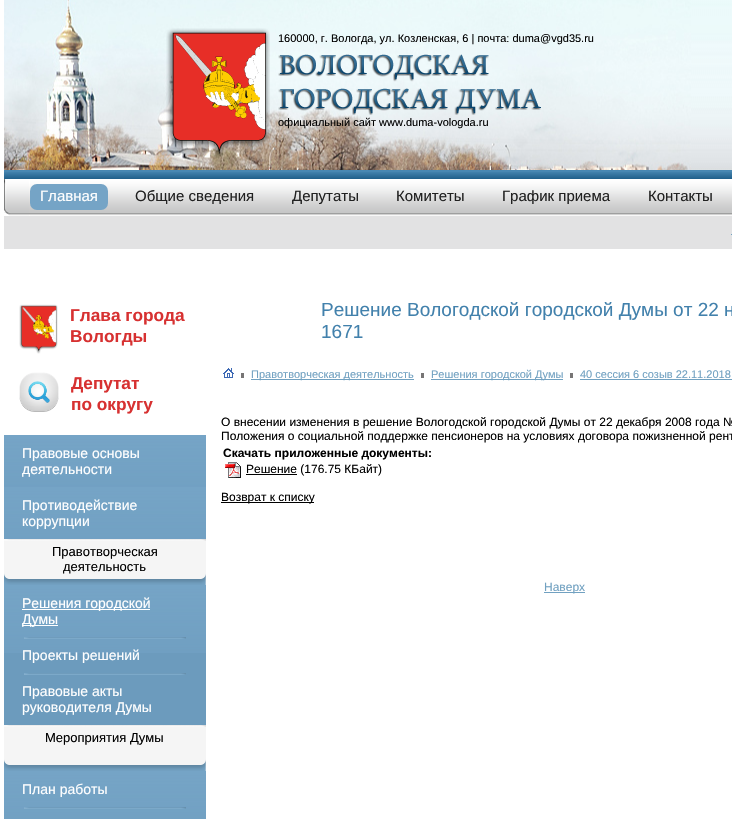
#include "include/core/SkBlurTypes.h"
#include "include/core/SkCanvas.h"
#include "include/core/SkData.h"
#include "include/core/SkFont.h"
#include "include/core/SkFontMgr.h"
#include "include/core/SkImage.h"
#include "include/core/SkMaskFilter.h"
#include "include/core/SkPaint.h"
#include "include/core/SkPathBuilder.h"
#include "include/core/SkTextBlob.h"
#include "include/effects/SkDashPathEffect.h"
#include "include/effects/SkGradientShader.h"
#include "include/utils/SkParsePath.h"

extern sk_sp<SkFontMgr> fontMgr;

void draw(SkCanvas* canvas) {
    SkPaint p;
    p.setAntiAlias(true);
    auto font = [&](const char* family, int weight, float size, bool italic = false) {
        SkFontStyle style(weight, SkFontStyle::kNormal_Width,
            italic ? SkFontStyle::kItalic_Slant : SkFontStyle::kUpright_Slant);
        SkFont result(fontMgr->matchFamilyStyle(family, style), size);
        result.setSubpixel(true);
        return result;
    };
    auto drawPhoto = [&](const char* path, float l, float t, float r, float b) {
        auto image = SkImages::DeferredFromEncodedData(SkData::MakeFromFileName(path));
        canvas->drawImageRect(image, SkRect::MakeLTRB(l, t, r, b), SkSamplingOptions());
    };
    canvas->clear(0xFFFFFFFF);
    drawPhoto("media/1.png", 4, 0, 691, 170);
    drawPhoto("media/2.png", 166, 28, 270, 159);
    auto font1 = font("Liberation Sans", 400, 11);
    p.setColor(0xFF000000);
    canvas->drawString("160000, г. Вологда, ул. Козленская, 6 | почта: duma@vgd35.ru", 278, 42, font1, p);
    drawPhoto("media/3.png", 278, 54, 541, 115);
    canvas->drawString("официальный сайт www.duma-vologda.ru", 278, 126, font1, p);
    drawPhoto("media/4.png", 691, 0, 732, 170);
    drawPhoto("media/5.png", 4, 170, 732, 179);
    p.setColor(0xFFE2E2E3);
    canvas->drawRect(SkRect::MakeLTRB(4, 216, 732, 249), p);
    drawPhoto("media/6.png", 4, 179, 30, 216);
    drawPhoto("media/7.png", 30, 179, 732, 216);
    p.setColor(0xFF75A4C6);
    canvas->drawRoundRect(SkRect::MakeLTRB(30, 184, 108, 210), 7, 7, p);
    auto font2 = font("Liberation Sans", 400, 15);
    p.setColor(0xFFFFFFFF);
    canvas->drawString("Главная", 40, 201, font2, p);
    p.setColor(0xFF212121);
    {
        const struct { const char* s; float x, y; } items[] = {
            {"Общие сведения", 135, 201},
            {"Депутаты", 292, 201},
            {"Комитеты", 396, 201},
            {"График приема", 502, 201},
            {"Контакты", 648, 201},
        };
        for (auto [s, x, y] : items) {
            canvas->drawString(s, x, y, font2, p);
        }
    }
    p.setColor(0xFF71A1C1);
    canvas->drawRect(SkRect::MakeLTRB(731, 234, 732, 235), p);
    drawPhoto("media/8.png", 19, 304, 58, 354);
    auto font3 = font("Liberation Sans", 700, 17.25f);
    p.setColor(0xFFD73131);
    canvas->drawString("Глава города", 70, 321, font3, p);
    canvas->drawString("Вологды", 70, 342, font3, p);
    drawPhoto("media/9.png", 19, 372, 59, 412);
    canvas->drawString("Депутат", 71, 389, font3, p);
    canvas->drawString("по округу", 71, 410, font3, p);
    drawPhoto("media/10.png", 4, 435, 206, 487);
    auto font4 = font("Liberation Sans", 400, 14);
    p.setColor(0xFFFFFFFF);
    canvas->drawString("Правовые основы", 22, 458, font4, p);
    canvas->drawString("деятельности", 22, 474, font4, p);
    drawPhoto("media/10.png", 4, 487, 206, 539);
    canvas->drawString("Противодействие", 22, 510, font4, p);
    canvas->drawString("коррупции", 22, 526, font4, p);
    drawPhoto("media/11.png", 4, 539, 206, 585);
    auto font5 = font("Liberation Sans", 400, 13);
    p.setColor(0xFF000000);
    canvas->drawString("Правотворческая", 52, 556, font5, p);
    canvas->drawString("деятельность", 63, 571, font5, p);
    p.setColor(0xFF6C9BBD);
    canvas->drawRect(SkRect::MakeLTRB(4, 653, 206, 725), p);
    drawPhoto("media/12.png", 4, 585, 206, 653);
    p.setColor(0xFFFFFFFF);
    canvas->drawRect(SkRect::MakeLTRB(22, 609, 150, 610), p);
    canvas->drawString("Решения городской", 22, 608, font4, p);
    canvas->drawRect(SkRect::MakeLTRB(22, 625, 58, 626), p);
    canvas->drawString("Думы", 22, 624, font4, p);
    drawPhoto("media/13.png", 24, 637, 186, 639);
    canvas->drawString("Проекты решений", 22, 660, font4, p);
    drawPhoto("media/13.png", 24, 673, 186, 675);
    canvas->drawString("Правовые акты", 22, 696, font4, p);
    canvas->drawString("руководителя Думы", 22, 712, font4, p);
    drawPhoto("media/11.png", 4, 725, 206, 771);
    p.setColor(0xFF000000);
    canvas->drawString("Мероприятия Думы", 45, 742, font5, p);
    drawPhoto("media/14.png", 4, 771, 206, 819);
    p.setColor(0xFFFFFFFF);
    canvas->drawString("План работы", 22, 794, font4, p);
    drawPhoto("media/13.png", 24, 807, 186, 809);
    auto font6 = font("Liberation Sans", 400, 19);
    p.setColor(0xFF4281AC);
    canvas->drawString("Решение Вологодской городской Думы от 22 н", 321, 316, font6, p);
    canvas->drawString("1671", 321, 338, font6, p);
    drawPhoto("media/15.png", 223, 368, 234, 378);
    p.setColor(0xFF777575);
    canvas->drawRect(SkRect::MakeLTRB(241, 373, 244, 378), p);
    p.setColor(0xFF71A1C1);
    canvas->drawRect(SkRect::MakeLTRB(251, 379, 414, 380), p);
    canvas->drawString("Правотворческая деятельность", 251, 378, font1, p);
    p.setColor(0xFF777575);
    canvas->drawRect(SkRect::MakeLTRB(421, 373, 424, 378), p);
    p.setColor(0xFF71A1C1);
    canvas->drawRect(SkRect::MakeLTRB(431, 379, 563, 380), p);
    canvas->drawString("Решения городской Думы", 431, 378, font1, p);
    p.setColor(0xFF777575);
    canvas->drawRect(SkRect::MakeLTRB(570, 373, 573, 378), p);
    p.setColor(0xFF71A1C1);
    canvas->drawString("40 сессия 6 созыв 22.11.2018", 580, 378, font1, p);
    canvas->drawRect(SkRect::MakeLTRB(580, 379, 732, 380), p);
    auto font7 = font("Liberation Sans", 400, 12);
    p.setColor(0xFF000000);
    canvas->drawString("О внесении изменения в решение Вологодской городской Думы от 22 декабря 2008 года №", 221, 426, font7, p);
    canvas->drawString("Положения о социальной поддержке пенсионеров на условиях договора пожизненной рент", 221, 440, font7, p);
    auto font8 = font("Liberation Sans", 700, 12);
    canvas->drawString("Скачать приложенные документы:", 223, 457, font8, p);
    drawPhoto("media/16.png", 225, 462, 241, 478);
    canvas->drawRect(SkRect::MakeLTRB(246, 474, 297, 475), p);
    canvas->drawString("Решение (176.75 КБайт)", 246, 473, font7, p);
    canvas->drawRect(SkRect::MakeLTRB(221, 502, 314, 503), p);
    canvas->drawString("Возврат к списку", 221, 501, font7, p);
    p.setColor(0xFF71A1C1);
    canvas->drawRect(SkRect::MakeLTRB(544, 592, 585, 593), p);
    canvas->drawString("Наверх", 544, 591, font7, p);
}
